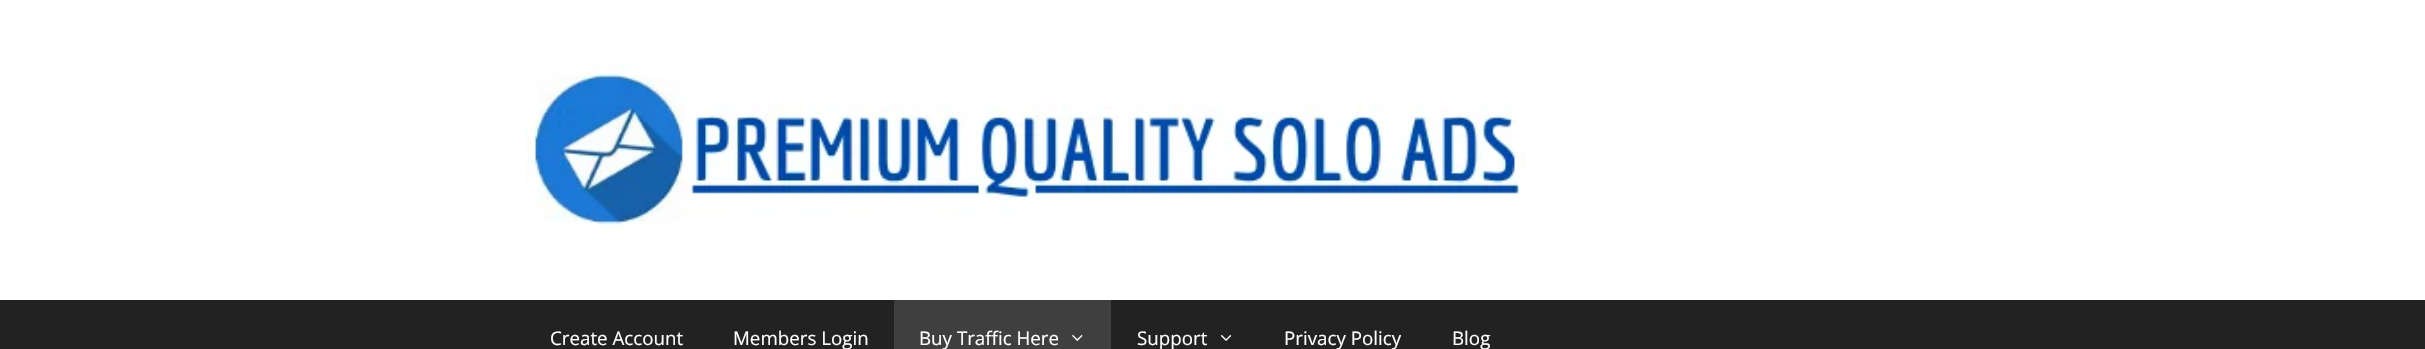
#include "include/core/SkBlurTypes.h"
#include "include/core/SkCanvas.h"
#include "include/core/SkData.h"
#include "include/core/SkFont.h"
#include "include/core/SkFontMgr.h"
#include "include/core/SkImage.h"
#include "include/core/SkMaskFilter.h"
#include "include/core/SkPaint.h"
#include "include/core/SkPathBuilder.h"
#include "include/core/SkTextBlob.h"
#include "include/effects/SkDashPathEffect.h"
#include "include/effects/SkGradientShader.h"
#include "include/utils/SkParsePath.h"

extern sk_sp<SkFontMgr> fontMgr;

void draw(SkCanvas* canvas) {
    SkPaint p;
    p.setAntiAlias(true);
    auto font = [&](const char* family, int weight, float size, bool italic = false) {
        SkFontStyle style(weight, SkFontStyle::kNormal_Width,
            italic ? SkFontStyle::kItalic_Slant : SkFontStyle::kUpright_Slant);
        SkFont result(fontMgr->matchFamilyStyle(family, style), size);
        result.setSubpixel(true);
        return result;
    };
    auto drawPhoto = [&](const char* path, float l, float t, float r, float b) {
        auto image = SkImages::DeferredFromEncodedData(SkData::MakeFromFileName(path));
        canvas->drawImageRect(image, SkRect::MakeLTRB(l, t, r, b), SkSamplingOptions());
    };
    canvas->clear(0xFF222222);
    p.setColor(0xFFFFFFFF);
    canvas->drawRect(SkRect::MakeLTRB(0, 0, 2425, 300), p);
    drawPhoto("media/1.png", 525, 65, 1525, 233);
    auto font1 = font("Open Sans", 400, 18.75f);
    canvas->drawString("Create Account", 550, 345, font1, p);
    canvas->drawString("Members Login", 733, 345, font1, p);
    p.setColor(0xFF3F3F3F);
    canvas->drawRect(SkRect::MakeLTRB(894, 300, 1111, 349), p);
    p.setColor(0xFFFFFFFF);
    canvas->drawString("Buy Traffic Here", 919, 345, font1, p);
    drawPhoto("media/2.png", 1072, 335, 1083, 341);
    canvas->drawString("Support", 1137, 345, font1, p);
    drawPhoto("media/3.png", 1220, 335, 1232, 341);
    canvas->drawString("Privacy Policy", 1284, 345, font1, p);
    canvas->drawString("Blog", 1452, 345, font1, p);
}
